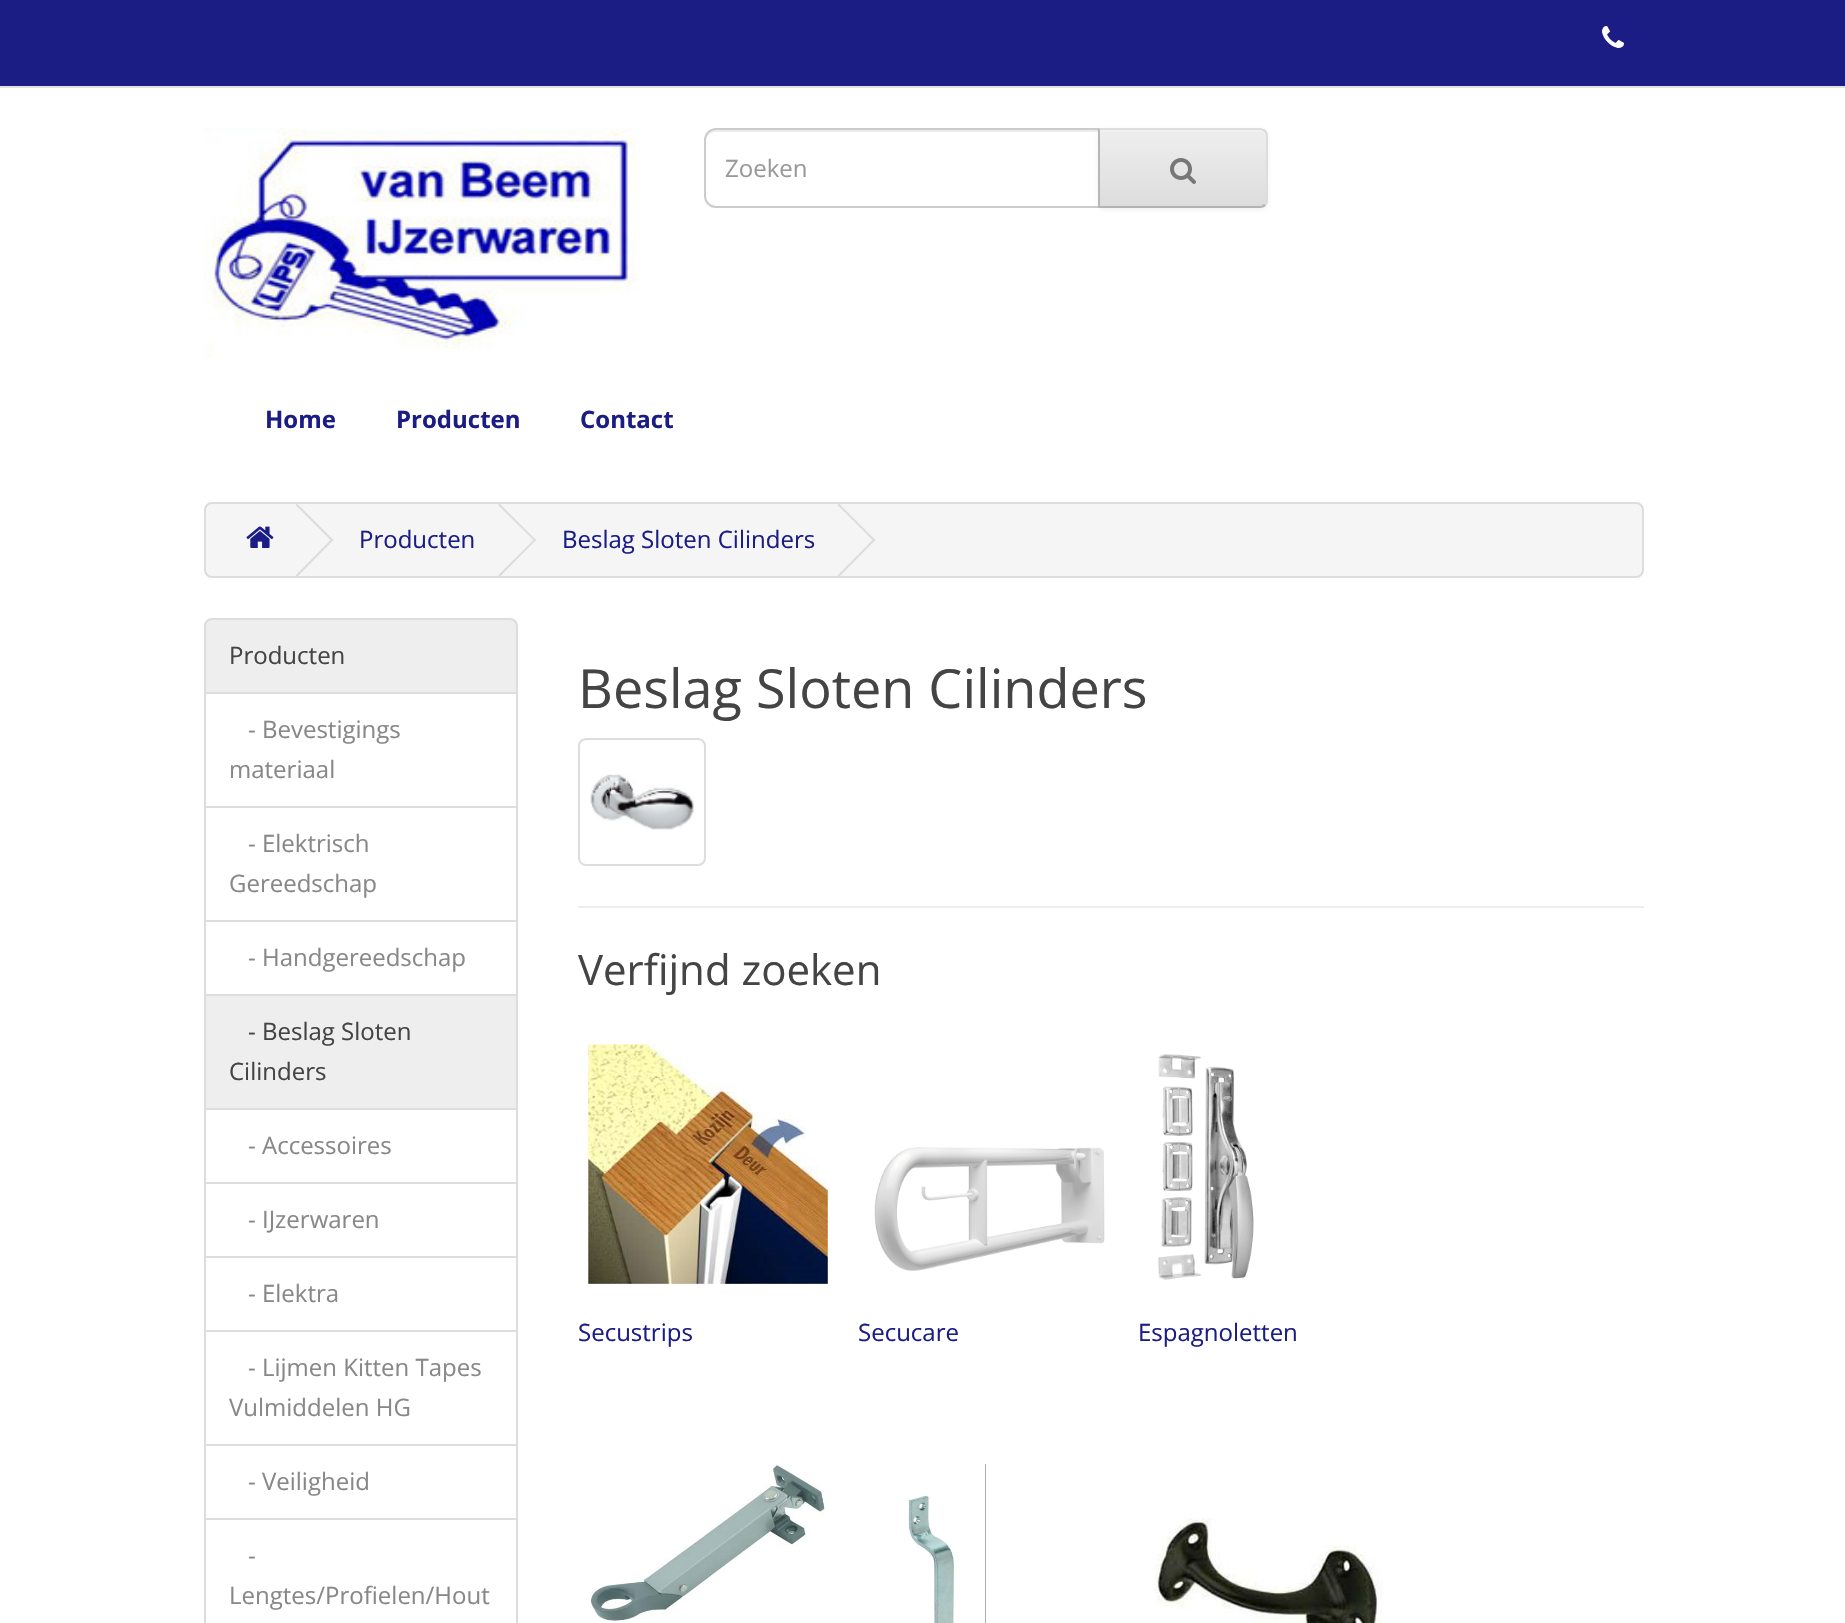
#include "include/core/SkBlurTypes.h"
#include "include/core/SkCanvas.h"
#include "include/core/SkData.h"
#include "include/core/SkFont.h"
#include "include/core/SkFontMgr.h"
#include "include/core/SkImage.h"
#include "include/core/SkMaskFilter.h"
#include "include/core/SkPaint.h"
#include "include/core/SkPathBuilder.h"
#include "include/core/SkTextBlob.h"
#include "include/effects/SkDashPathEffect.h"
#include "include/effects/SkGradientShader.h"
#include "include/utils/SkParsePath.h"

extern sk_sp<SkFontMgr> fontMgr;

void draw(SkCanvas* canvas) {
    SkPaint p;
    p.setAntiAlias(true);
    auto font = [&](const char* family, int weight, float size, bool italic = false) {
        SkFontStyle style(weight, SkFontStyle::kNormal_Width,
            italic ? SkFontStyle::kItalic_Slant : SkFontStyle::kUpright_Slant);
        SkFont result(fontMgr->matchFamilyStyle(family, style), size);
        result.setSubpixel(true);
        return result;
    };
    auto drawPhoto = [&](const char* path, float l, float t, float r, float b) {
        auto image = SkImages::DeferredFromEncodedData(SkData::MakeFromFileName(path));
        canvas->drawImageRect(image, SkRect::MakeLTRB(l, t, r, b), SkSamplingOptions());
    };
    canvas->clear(0xFFFFFFFF);
    p.setColor(0xFF1B1D85);
    canvas->drawRect(SkRect::MakeLTRB(0, 0, 1845, 86), p);
    p.setColor(0xFFE2E2E2);
    canvas->drawRect(SkRect::MakeLTRB(0, 86, 1845, 88), p);
    drawPhoto("media/1.png", 1602, 26, 1624, 48);
    drawPhoto("media/2.png", 204, 128, 640, 358);
    p.setColor(0xFFECECEC);
    canvas->drawPath(SkPathBuilder().moveTo(716, 132).lineTo(1098, 132).lineTo(1098, 130).lineTo(714, 130).cubicTo(708, 131, 706, 137, 706, 142).cubicTo(706, 136, 710, 132, 716, 132).close().detach(), p);
    p.setStyle(SkPaint::kStroke_Style);
    p.setStrokeWidth(2);
    p.setColor(0xFFCCCCCC);
    canvas->drawPath(SkPathBuilder().moveTo(716, 129).lineTo(1099, 129).lineTo(1099, 207).lineTo(716, 207).cubicTo(710, 207, 705, 202, 705, 196).lineTo(705, 140).cubicTo(705, 134, 710, 129, 716, 129).close().detach(), p);
    auto font1 = font("Open Sans", 400, 24);
    p.setStyle(SkPaint::kFill_Style);
    p.setColor(0xFF999999);
    canvas->drawString("Zoeken", 725, 177, font1, p);
    p.setColor(0x0D000000);
    p.setMaskFilter(SkMaskFilter::MakeBlur(kNormal_SkBlurStyle, 2));
    canvas->drawRoundRect(SkRect::MakeLTRB(1098, 130, 1268, 210), 8, 8, p);
    p.setMaskFilter(nullptr);
    canvas->save();
    canvas->clipPath(SkPathBuilder().moveTo(1098, 128).lineTo(1260, 128).cubicTo(1264.5f, 128, 1268, 131.5f, 1268, 136).lineTo(1268, 200).cubicTo(1268, 204.5f, 1264.5f, 208, 1260, 208).lineTo(1098, 208).close().detach(), true);
    {
        const SkColor colors[] = {0xFFEEEEEE, 0xFFDDDDDD};
        const float stops[] = {0, 1};
        const SkPoint ends[] = {{1183, 130}, {1183, 206}};
        p.setShader(SkGradientShader::MakeLinear(ends, colors, stops, 2, SkTileMode::kClamp));
        p.setAlpha(255);
    }
    canvas->drawRect(SkRect::MakeLTRB(1100, 130, 1268, 206), p);
    canvas->restore();
    p.setShader(nullptr);
    p.setColor(0xFFF1F1F1);
    canvas->drawPath(SkPathBuilder().moveTo(1100, 132).lineTo(1260, 132).cubicTo(1263, 132, 1266, 135, 1266, 138).lineTo(1266, 136).cubicTo(1266, 133, 1263, 130, 1260, 130).lineTo(1100, 130).close().detach(), p);
    p.setColor(0xFFDDDDDD);
    canvas->drawPath(SkPathBuilder().moveTo(1098, 128).lineTo(1100, 130).lineTo(1261, 130).lineTo(1264, 132).lineTo(1266, 130).cubicTo(1264, 129, 1262, 128, 1260, 128).close().detach(), p);
    canvas->drawPath(SkPathBuilder().moveTo(1268, 200).lineTo(1268, 136).cubicTo(1268, 134, 1267, 132, 1266, 130).lineTo(1264, 132).cubicTo(1265, 133, 1266, 134, 1266, 136).lineTo(1266, 200).cubicTo(1266, 202, 1265, 203, 1264, 204).lineTo(1266, 206).cubicTo(1267, 204, 1268, 202, 1268, 200).close().detach(), p);
    p.setColor(0xFFB3B3B3);
    canvas->drawPath(SkPathBuilder().moveTo(1260, 208).cubicTo(1262, 208, 1264, 207, 1266, 206).lineTo(1264, 204).lineTo(1261, 206).lineTo(1100, 206).lineTo(1098, 208).close().detach(), p);
    p.setColor(0xFFB7B7B7);
    canvas->drawPath(SkPathBuilder().moveTo(1098, 128).lineTo(1098, 208).lineTo(1100, 206).lineTo(1100, 130).close().detach(), p);
    drawPhoto("media/3.png", 1170, 158, 1196, 184);
    auto font2 = font("Open Sans", 700, 24);
    p.setColor(0xFF1B1D85);
    {
        const struct { const char* s; float x, y; } items[] = {
            {"Home", 265, 428},
            {"Producten", 396, 428},
            {"Contact", 580, 428},
        };
        for (auto [s, x, y] : items) {
            canvas->drawString(s, x, y, font2, p);
        }
    }
    p.setColor(0xFFF5F5F5);
    canvas->drawRoundRect(SkRect::MakeLTRB(205, 503, 1643, 577), 7, 7, p);
    p.setStyle(SkPaint::kStroke_Style);
    p.setColor(0xFFDDDDDD);
    canvas->drawRoundRect(SkRect::MakeLTRB(205, 503, 1643, 577), 7, 7, p);
    drawPhoto("media/4.png", 246, 526, 274, 548);
    p.setStyle(SkPaint::kFill_Style);
    canvas->drawPath(SkPathBuilder().moveTo(295.5f, 505).lineTo(297, 503.5f).lineTo(333.5f, 540).lineTo(332, 541.5f).close().detach(), p);
    canvas->drawPath(SkPathBuilder().moveTo(295.5f, 575.5f).lineTo(332, 538.5f).lineTo(333.5f, 540).lineTo(297, 577).close().detach(), p);
    p.setColor(0xFF1B1D85);
    canvas->drawString("Producten", 359, 548, font1, p);
    p.setColor(0xFFDDDDDD);
    canvas->drawPath(SkPathBuilder().moveTo(498, 505).lineTo(499.5f, 503.5f).lineTo(536, 540).lineTo(535, 541.5f).close().detach(), p);
    canvas->drawPath(SkPathBuilder().moveTo(498, 575.5f).lineTo(535, 538.5f).lineTo(536, 540).lineTo(499.5f, 577).close().detach(), p);
    p.setColor(0xFF1B1D85);
    canvas->drawString("Beslag Sloten Cilinders", 562, 548, font1, p);
    p.setColor(0xFFDDDDDD);
    canvas->drawPath(SkPathBuilder().moveTo(837.5f, 505).lineTo(839, 503.5f).lineTo(875.5f, 540).lineTo(874, 541.5f).close().detach(), p);
    canvas->drawPath(SkPathBuilder().moveTo(837.5f, 575.5f).lineTo(874, 538.5f).lineTo(875.5f, 540).lineTo(839, 577).close().detach(), p);
    p.setStyle(SkPaint::kStroke_Style);
    canvas->drawRect(SkRect::MakeLTRB(205, 693, 517, 807), p);
    p.setStyle(SkPaint::kFill_Style);
    p.setColor(0xFFEEEEEE);
    canvas->drawPath(SkPathBuilder().moveTo(212, 619).lineTo(510, 619).cubicTo(514, 619, 517, 622, 517, 626).lineTo(517, 693).lineTo(205, 693).lineTo(205, 626).cubicTo(205, 622, 208, 619, 212, 619).close().detach(), p);
    p.setStyle(SkPaint::kStroke_Style);
    p.setColor(0xFFDDDDDD);
    canvas->drawPath(SkPathBuilder().moveTo(212, 619).lineTo(510, 619).cubicTo(514, 619, 517, 622, 517, 626).lineTo(517, 693).lineTo(205, 693).lineTo(205, 626).cubicTo(205, 622, 208, 619, 212, 619).close().detach(), p);
    p.setStyle(SkPaint::kFill_Style);
    p.setColor(0xFF444444);
    canvas->drawString("Producten", 229, 664, font1, p);
    p.setColor(0xFF888888);
    canvas->drawString("- Bevestigings", 248, 738, font1, p);
    canvas->drawString("materiaal", 229, 778, font1, p);
    p.setStyle(SkPaint::kStroke_Style);
    p.setColor(0xFFDDDDDD);
    canvas->drawRect(SkRect::MakeLTRB(205, 807, 517, 921), p);
    p.setStyle(SkPaint::kFill_Style);
    p.setColor(0xFF888888);
    canvas->drawString("- Elektrisch", 248, 852, font1, p);
    canvas->drawString("Gereedschap", 229, 892, font1, p);
    p.setStyle(SkPaint::kStroke_Style);
    p.setColor(0xFFDDDDDD);
    canvas->drawRect(SkRect::MakeLTRB(205, 921, 517, 995), p);
    p.setStyle(SkPaint::kFill_Style);
    p.setColor(0xFF888888);
    canvas->drawString("- Handgereedschap", 248, 966, font1, p);
    p.setStyle(SkPaint::kStroke_Style);
    p.setColor(0xFFDDDDDD);
    canvas->drawRect(SkRect::MakeLTRB(205, 1109, 517, 1183), p);
    p.setStyle(SkPaint::kFill_Style);
    p.setColor(0xFFEEEEEE);
    canvas->drawRect(SkRect::MakeLTRB(205, 995, 517, 1109), p);
    p.setStyle(SkPaint::kStroke_Style);
    p.setColor(0xFFDDDDDD);
    canvas->drawRect(SkRect::MakeLTRB(205, 995, 517, 1109), p);
    p.setStyle(SkPaint::kFill_Style);
    p.setColor(0xFF444444);
    canvas->drawString("- Beslag Sloten", 248, 1040, font1, p);
    canvas->drawString("Cilinders", 229, 1080, font1, p);
    p.setColor(0xFF888888);
    canvas->drawString("- Accessoires", 248, 1154, font1, p);
    p.setStyle(SkPaint::kStroke_Style);
    p.setColor(0xFFDDDDDD);
    canvas->drawRect(SkRect::MakeLTRB(205, 1183, 517, 1257), p);
    p.setStyle(SkPaint::kFill_Style);
    p.setColor(0xFF888888);
    canvas->drawString("- IJzerwaren", 248, 1228, font1, p);
    p.setStyle(SkPaint::kStroke_Style);
    p.setColor(0xFFDDDDDD);
    canvas->drawRect(SkRect::MakeLTRB(205, 1257, 517, 1331), p);
    p.setStyle(SkPaint::kFill_Style);
    p.setColor(0xFF888888);
    canvas->drawString("- Elektra", 248, 1302, font1, p);
    p.setStyle(SkPaint::kStroke_Style);
    p.setColor(0xFFDDDDDD);
    canvas->drawRect(SkRect::MakeLTRB(205, 1331, 517, 1445), p);
    p.setStyle(SkPaint::kFill_Style);
    p.setColor(0xFF888888);
    canvas->drawString("- Lijmen Kitten Tapes", 248, 1376, font1, p);
    canvas->drawString("Vulmiddelen HG", 229, 1416, font1, p);
    p.setStyle(SkPaint::kStroke_Style);
    p.setColor(0xFFDDDDDD);
    canvas->drawRect(SkRect::MakeLTRB(205, 1445, 517, 1519), p);
    p.setStyle(SkPaint::kFill_Style);
    p.setColor(0xFF888888);
    canvas->drawString("- Veiligheid", 248, 1490, font1, p);
    p.setStyle(SkPaint::kStroke_Style);
    p.setColor(0xFFDDDDDD);
    canvas->drawRect(SkRect::MakeLTRB(205, 1519, 517, 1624), p);
    p.setStyle(SkPaint::kFill_Style);
    p.setColor(0xFF888888);
    canvas->drawString("-", 248, 1564, font1, p);
    canvas->drawString("Lengtes/Profielen/Hout", 229, 1604, font1, p);
    auto font3 = font("Open Sans", 400, 54);
    p.setColor(0xFF444444);
    canvas->drawString("Beslag Sloten Cilinders", 578, 708, font3, p);
    p.setStyle(SkPaint::kStroke_Style);
    p.setColor(0xFFDDDDDD);
    canvas->drawRoundRect(SkRect::MakeLTRB(579, 739, 705, 865), 7, 7, p);
    drawPhoto("media/5.png", 590, 774, 694, 830);
    p.setStyle(SkPaint::kFill_Style);
    p.setColor(0xFFEEEEEE);
    canvas->drawRect(SkRect::MakeLTRB(578, 906, 1644, 908), p);
    auto font4 = font("Open Sans", 400, 42);
    p.setColor(0xFF444444);
    canvas->drawString("Verfijnd zoeken", 578, 985, font4, p);
    drawPhoto("media/6.png", 588, 1044, 828, 1284);
    p.setColor(0xFF1B1D85);
    canvas->drawString("Secustrips", 578, 1341, font1, p);
    drawPhoto("media/7.png", 874, 1147, 1105, 1271);
    canvas->drawString("Secucare", 858, 1341, font1, p);
    drawPhoto("media/8.png", 1158, 1054, 1254, 1280);
    canvas->drawString("Espagnoletten", 1138, 1341, font1, p);
    drawPhoto("media/9.png", 588, 1464, 828, 1622);
    drawPhoto("media/10.png", 908, 1464, 986, 1623);
    drawPhoto("media/11.png", 1155, 1518, 1383, 1623);
}
